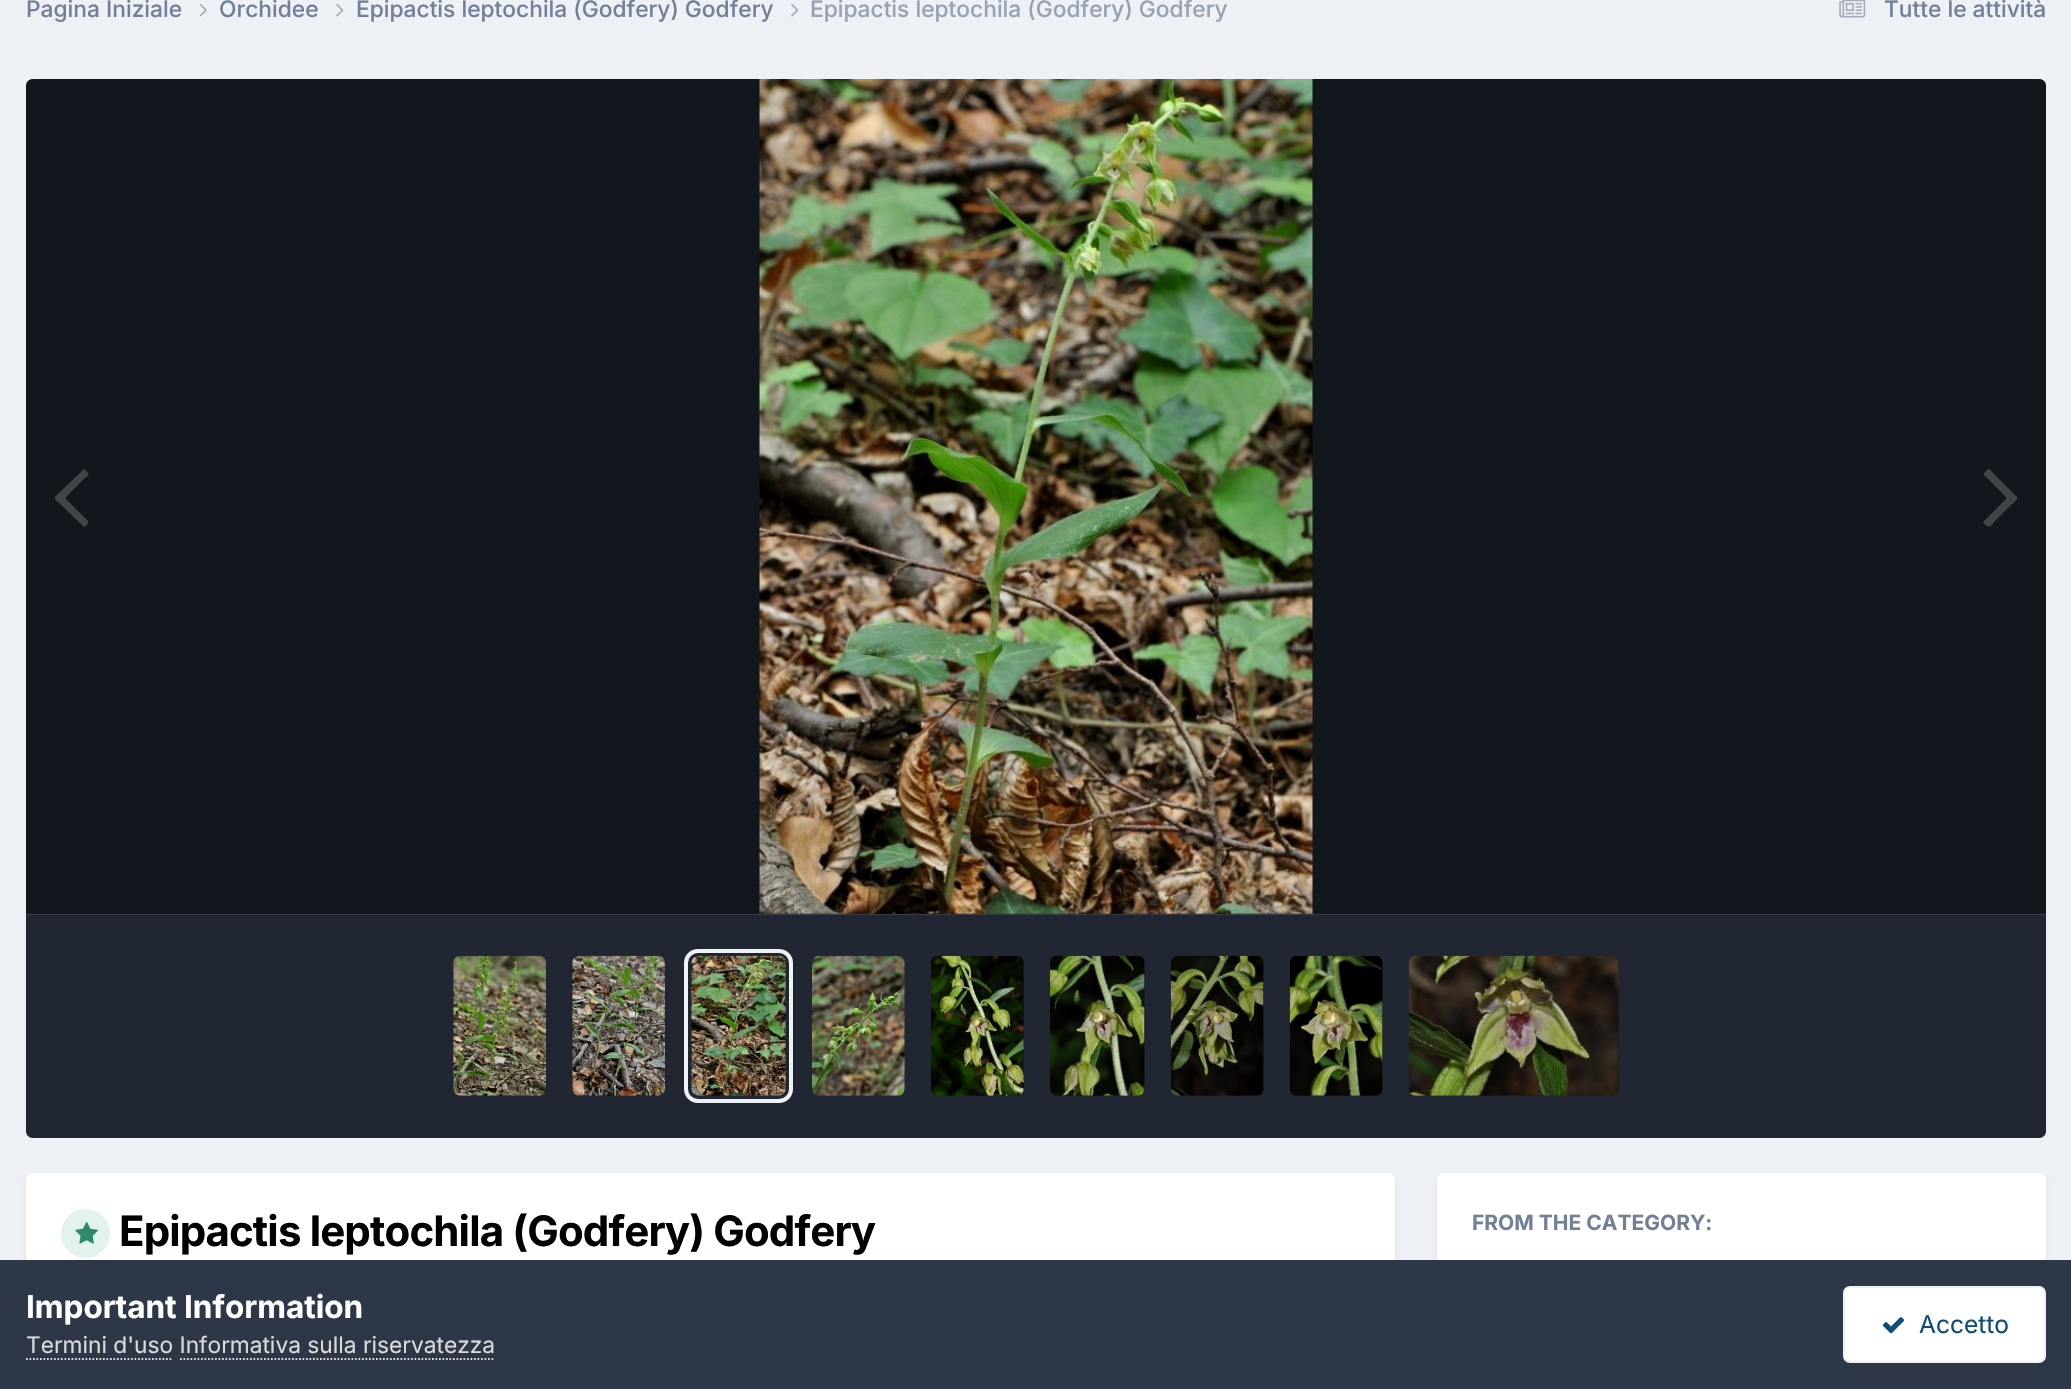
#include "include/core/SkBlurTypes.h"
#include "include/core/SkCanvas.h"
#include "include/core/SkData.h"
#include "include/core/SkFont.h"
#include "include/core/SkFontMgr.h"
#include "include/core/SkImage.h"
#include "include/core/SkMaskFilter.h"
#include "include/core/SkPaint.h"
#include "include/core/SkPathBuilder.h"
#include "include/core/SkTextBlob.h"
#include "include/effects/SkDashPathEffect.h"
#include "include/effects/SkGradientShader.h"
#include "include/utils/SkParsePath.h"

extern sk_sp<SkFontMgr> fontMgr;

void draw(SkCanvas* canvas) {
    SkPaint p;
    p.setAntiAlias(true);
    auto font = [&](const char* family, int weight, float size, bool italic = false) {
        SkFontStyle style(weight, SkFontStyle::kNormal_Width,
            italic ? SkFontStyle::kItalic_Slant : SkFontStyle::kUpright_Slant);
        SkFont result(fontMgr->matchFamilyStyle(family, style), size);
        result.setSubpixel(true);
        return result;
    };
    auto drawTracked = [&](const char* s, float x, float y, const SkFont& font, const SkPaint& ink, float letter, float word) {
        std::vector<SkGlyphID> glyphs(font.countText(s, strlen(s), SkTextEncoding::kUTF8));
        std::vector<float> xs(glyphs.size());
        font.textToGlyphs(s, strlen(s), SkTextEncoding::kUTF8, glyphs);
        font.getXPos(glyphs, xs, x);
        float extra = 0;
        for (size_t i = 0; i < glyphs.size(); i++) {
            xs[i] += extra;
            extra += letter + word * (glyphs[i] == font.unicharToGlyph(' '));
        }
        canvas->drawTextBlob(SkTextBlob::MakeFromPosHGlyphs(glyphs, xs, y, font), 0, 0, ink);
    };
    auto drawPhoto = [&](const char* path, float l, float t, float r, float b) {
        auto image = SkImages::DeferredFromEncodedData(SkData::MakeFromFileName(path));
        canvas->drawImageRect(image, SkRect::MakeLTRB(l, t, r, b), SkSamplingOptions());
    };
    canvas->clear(0xFFEDF0F4);
    auto font1 = font("Inter", 500, 22.75f);
    p.setColor(0xFF718096);
    canvas->drawString("Pagina Iniziale", 26, 17, font1, p);
    drawPhoto("media/1.png", 199, 4, 207, 17);
    canvas->drawString("Orchidee", 219, 17, font1, p);
    drawPhoto("media/2.png", 336, 4, 344, 17);
    canvas->drawString("Epipactis leptochila (Godfery) Godfery", 356, 17, font1, p);
    drawPhoto("media/2.png", 791, 4, 799, 17);
    p.setColor(0xFF96A2B2);
    canvas->drawString("Epipactis leptochila (Godfery) Godfery", 810, 17, font1, p);
    drawPhoto("media/3.png", 1839, 0, 1866, 18);
    p.setColor(0xFF718096);
    canvas->drawString("Tutte le attività", 1884, 17, font1, p);
    p.setColor(0xFF2D3748);
    canvas->drawPath(SkPathBuilder().moveTo(33, 79).lineTo(2039, 79).cubicTo(2043, 79, 2046, 82, 2046, 86).lineTo(2046, 914).lineTo(26, 914).lineTo(26, 86).cubicTo(26, 82, 29, 79, 33, 79).close().detach(), p);
    p.setColor(0x99000000);
    canvas->drawPath(SkPathBuilder().moveTo(33, 79).lineTo(2039, 79).cubicTo(2043, 79, 2046, 82, 2046, 86).lineTo(2046, 914).lineTo(26, 914).lineTo(26, 86).cubicTo(26, 82, 29, 79, 33, 79).close().detach(), p);
    drawPhoto("media/4.png", 759, 79, 1313, 914);
    p.setColor(0xFF41454A);
    canvas->drawPath(SkPathBuilder().moveTo(88, 473).cubicTo(90, 475, 85, 478, 84, 479).lineTo(65, 498).lineTo(84, 517).cubicTo(88, 521, 90, 521, 87, 525).cubicTo(86, 526, 84, 528, 83, 526).lineTo(60, 504).cubicTo(53, 497, 53, 499, 60, 492).lineTo(83, 470).cubicTo(85, 468, 87, 472, 88, 473).close().detach(), p);
    canvas->drawPath(SkPathBuilder().moveTo(2017, 497).cubicTo(2019, 499, 2012, 504, 2012, 504).lineTo(1994, 522).cubicTo(1994, 522, 1990, 529, 1987, 526).cubicTo(1986, 525, 1982, 523, 1984, 521).lineTo(2007, 498).lineTo(1988, 479).cubicTo(1984, 475, 1982, 475, 1986, 471).cubicTo(1990, 467, 1990, 470, 1994, 474).close().detach(), p);
    p.setColor(0xFF2D3748);
    canvas->drawPath(SkPathBuilder().moveTo(26, 914).lineTo(2046, 914).lineTo(2046, 1131).cubicTo(2046, 1135, 2043, 1138, 2039, 1138).lineTo(33, 1138).cubicTo(29, 1138, 26, 1135, 26, 1131).close().detach(), p);
    p.setColor(0x4D000000);
    canvas->drawPath(SkPathBuilder().moveTo(26, 914).lineTo(2046, 914).lineTo(2046, 1131).cubicTo(2046, 1135, 2043, 1138, 2039, 1138).lineTo(33, 1138).cubicTo(29, 1138, 26, 1135, 26, 1131).close().detach(), p);
    p.setColor(0xFF363C47);
    canvas->drawRect(SkRect::MakeLTRB(26, 914, 2046, 915), p);
    p.setColor(0xFF141414);
    canvas->drawRoundRect(SkRect::MakeLTRB(453, 956, 546, 1096), 7, 7, p);
    p.setColor(0x4D2D3748);
    canvas->drawRoundRect(SkRect::MakeLTRB(453, 956, 546, 1096), 7, 7, p);
    drawPhoto("media/5.png", 453, 955, 546, 1096);
    p.setColor(0xFF141414);
    canvas->drawRoundRect(SkRect::MakeLTRB(572, 956, 665, 1096), 7, 7, p);
    p.setColor(0x4D2D3748);
    canvas->drawRoundRect(SkRect::MakeLTRB(572, 956, 665, 1096), 7, 7, p);
    drawPhoto("media/6.png", 572, 955, 665, 1096);
    p.setColor(0xFF141414);
    canvas->drawRoundRect(SkRect::MakeLTRB(691, 956, 786, 1096), 7, 7, p);
    p.setColor(0x4D2D3748);
    canvas->drawRoundRect(SkRect::MakeLTRB(691, 956, 786, 1096), 7, 7, p);
    p.setStyle(SkPaint::kStroke_Style);
    p.setStrokeWidth(4);
    p.setColor(0xFFEDF2F7);
    canvas->drawRoundRect(SkRect::MakeLTRB(686, 951, 791, 1101), 12, 12, p);
    drawPhoto("media/7.png", 691, 955, 786, 1096);
    p.setStyle(SkPaint::kFill_Style);
    p.setColor(0xFF141414);
    canvas->drawRoundRect(SkRect::MakeLTRB(812, 956, 905, 1096), 7, 7, p);
    p.setColor(0x4D2D3748);
    canvas->drawRoundRect(SkRect::MakeLTRB(812, 956, 905, 1096), 7, 7, p);
    drawPhoto("media/8.png", 812, 955, 905, 1096);
    p.setColor(0xFF141414);
    canvas->drawRoundRect(SkRect::MakeLTRB(931, 956, 1024, 1096), 7, 7, p);
    p.setColor(0x4D2D3748);
    canvas->drawRoundRect(SkRect::MakeLTRB(931, 956, 1024, 1096), 7, 7, p);
    drawPhoto("media/9.png", 931, 955, 1024, 1096);
    p.setColor(0xFF141414);
    canvas->drawRoundRect(SkRect::MakeLTRB(1050, 956, 1145, 1096), 7, 7, p);
    p.setColor(0x4D2D3748);
    canvas->drawRoundRect(SkRect::MakeLTRB(1050, 956, 1145, 1096), 7, 7, p);
    drawPhoto("media/10.png", 1050, 955, 1145, 1096);
    p.setColor(0xFF141414);
    canvas->drawRoundRect(SkRect::MakeLTRB(1171, 956, 1264, 1096), 7, 7, p);
    p.setColor(0x4D2D3748);
    canvas->drawRoundRect(SkRect::MakeLTRB(1171, 956, 1264, 1096), 7, 7, p);
    drawPhoto("media/11.png", 1170, 955, 1264, 1096);
    p.setColor(0xFF141414);
    canvas->drawRoundRect(SkRect::MakeLTRB(1290, 956, 1383, 1096), 7, 7, p);
    p.setColor(0x4D2D3748);
    canvas->drawRoundRect(SkRect::MakeLTRB(1290, 956, 1383, 1096), 7, 7, p);
    drawPhoto("media/12.png", 1289, 955, 1383, 1096);
    p.setColor(0xFF141414);
    canvas->drawRoundRect(SkRect::MakeLTRB(1409, 956, 1619, 1096), 7, 7, p);
    p.setColor(0x4D2D3748);
    canvas->drawRoundRect(SkRect::MakeLTRB(1409, 956, 1619, 1096), 7, 7, p);
    drawPhoto("media/13.png", 1408, 955, 1619, 1096);
    p.setColor(0x1A2D3748);
    p.setMaskFilter(SkMaskFilter::MakeBlur(kNormal_SkBlurStyle, 3.5f));
    canvas->drawRoundRect(SkRect::MakeLTRB(28, 1178, 1393, 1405), 5, 5, p);
    p.setMaskFilter(nullptr);
    p.setColor(0xFFFFFFFF);
    canvas->drawRoundRect(SkRect::MakeLTRB(26, 1173, 1395, 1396), 7, 7, p);
    p.setColor(0xFFE3F3EC);
    canvas->drawCircle(85.5f, 1233.5f, 24.5f, p);
    drawPhoto("media/14.png", 75, 1222, 98, 1244);
    auto font2 = font("Inter", 700, 42);
    p.setColor(0xFF000000);
    drawTracked("Epipactis leptochila (Godfery) Godfery", 119, 1246, font2, p, -0.85f, 0);
    p.setColor(0x1A2D3748);
    p.setMaskFilter(SkMaskFilter::MakeBlur(kNormal_SkBlurStyle, 3.5f));
    canvas->drawRoundRect(SkRect::MakeLTRB(1439, 1178, 2044, 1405), 5, 5, p);
    p.setMaskFilter(nullptr);
    p.setColor(0xFFFFFFFF);
    canvas->drawRoundRect(SkRect::MakeLTRB(1437, 1173, 2046, 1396), 7, 7, p);
    auto font3 = font("Inter", 700, 21);
    p.setColor(0xFF718096);
    canvas->drawString("FROM THE CATEGORY:", 1472, 1230, font3, p);
    p.setColor(0xFF2D3748);
    canvas->drawRect(SkRect::MakeLTRB(0, 1260, 2071, 1389), p);
    auto font4 = font("Inter", 700, 31.5f);
    p.setColor(0xFFFFFFFF);
    canvas->drawString("Important Information", 26, 1318, font4, p);
    auto font5 = font("Inter", 400, 22.75f);
    p.setColor(0xFFDADADA);
    canvas->drawString("Termini d'uso Informativa sulla riservatezza", 26, 1353, font5, p);
    p.setStyle(SkPaint::kStroke_Style);
    p.setStrokeWidth(1.8f);
    p.setPathEffect(SkDashPathEffect::Make({{1.75f, 1.75f}}, 0));
    canvas->drawPath(SkPathBuilder().moveTo(26, 1359).lineTo(173, 1359).detach(), p);
    p.setPathEffect(nullptr);
    p.setPathEffect(SkDashPathEffect::Make({{1.75f, 1.75f}}, 0));
    canvas->drawPath(SkPathBuilder().moveTo(180, 1359).lineTo(495, 1359).detach(), p);
    p.setPathEffect(nullptr);
    p.setStyle(SkPaint::kFill_Style);
    p.setColor(0xFFFFFFFF);
    canvas->drawRoundRect(SkRect::MakeLTRB(1843, 1286, 2046, 1363), 7, 7, p);
    p.setStyle(SkPaint::kStroke_Style);
    p.setStrokeWidth(2);
    p.setColor(0x120E4C79);
    canvas->drawRoundRect(SkRect::MakeLTRB(1844, 1287, 2045, 1362), 6, 6, p);
    drawPhoto("media/15.png", 1882, 1317, 1905, 1334);
    auto font6 = font("Inter", 400, 24.5f);
    p.setStyle(SkPaint::kFill_Style);
    p.setColor(0xFF0E4C79);
    canvas->drawString("Accetto", 1919, 1333, font6, p);
}
